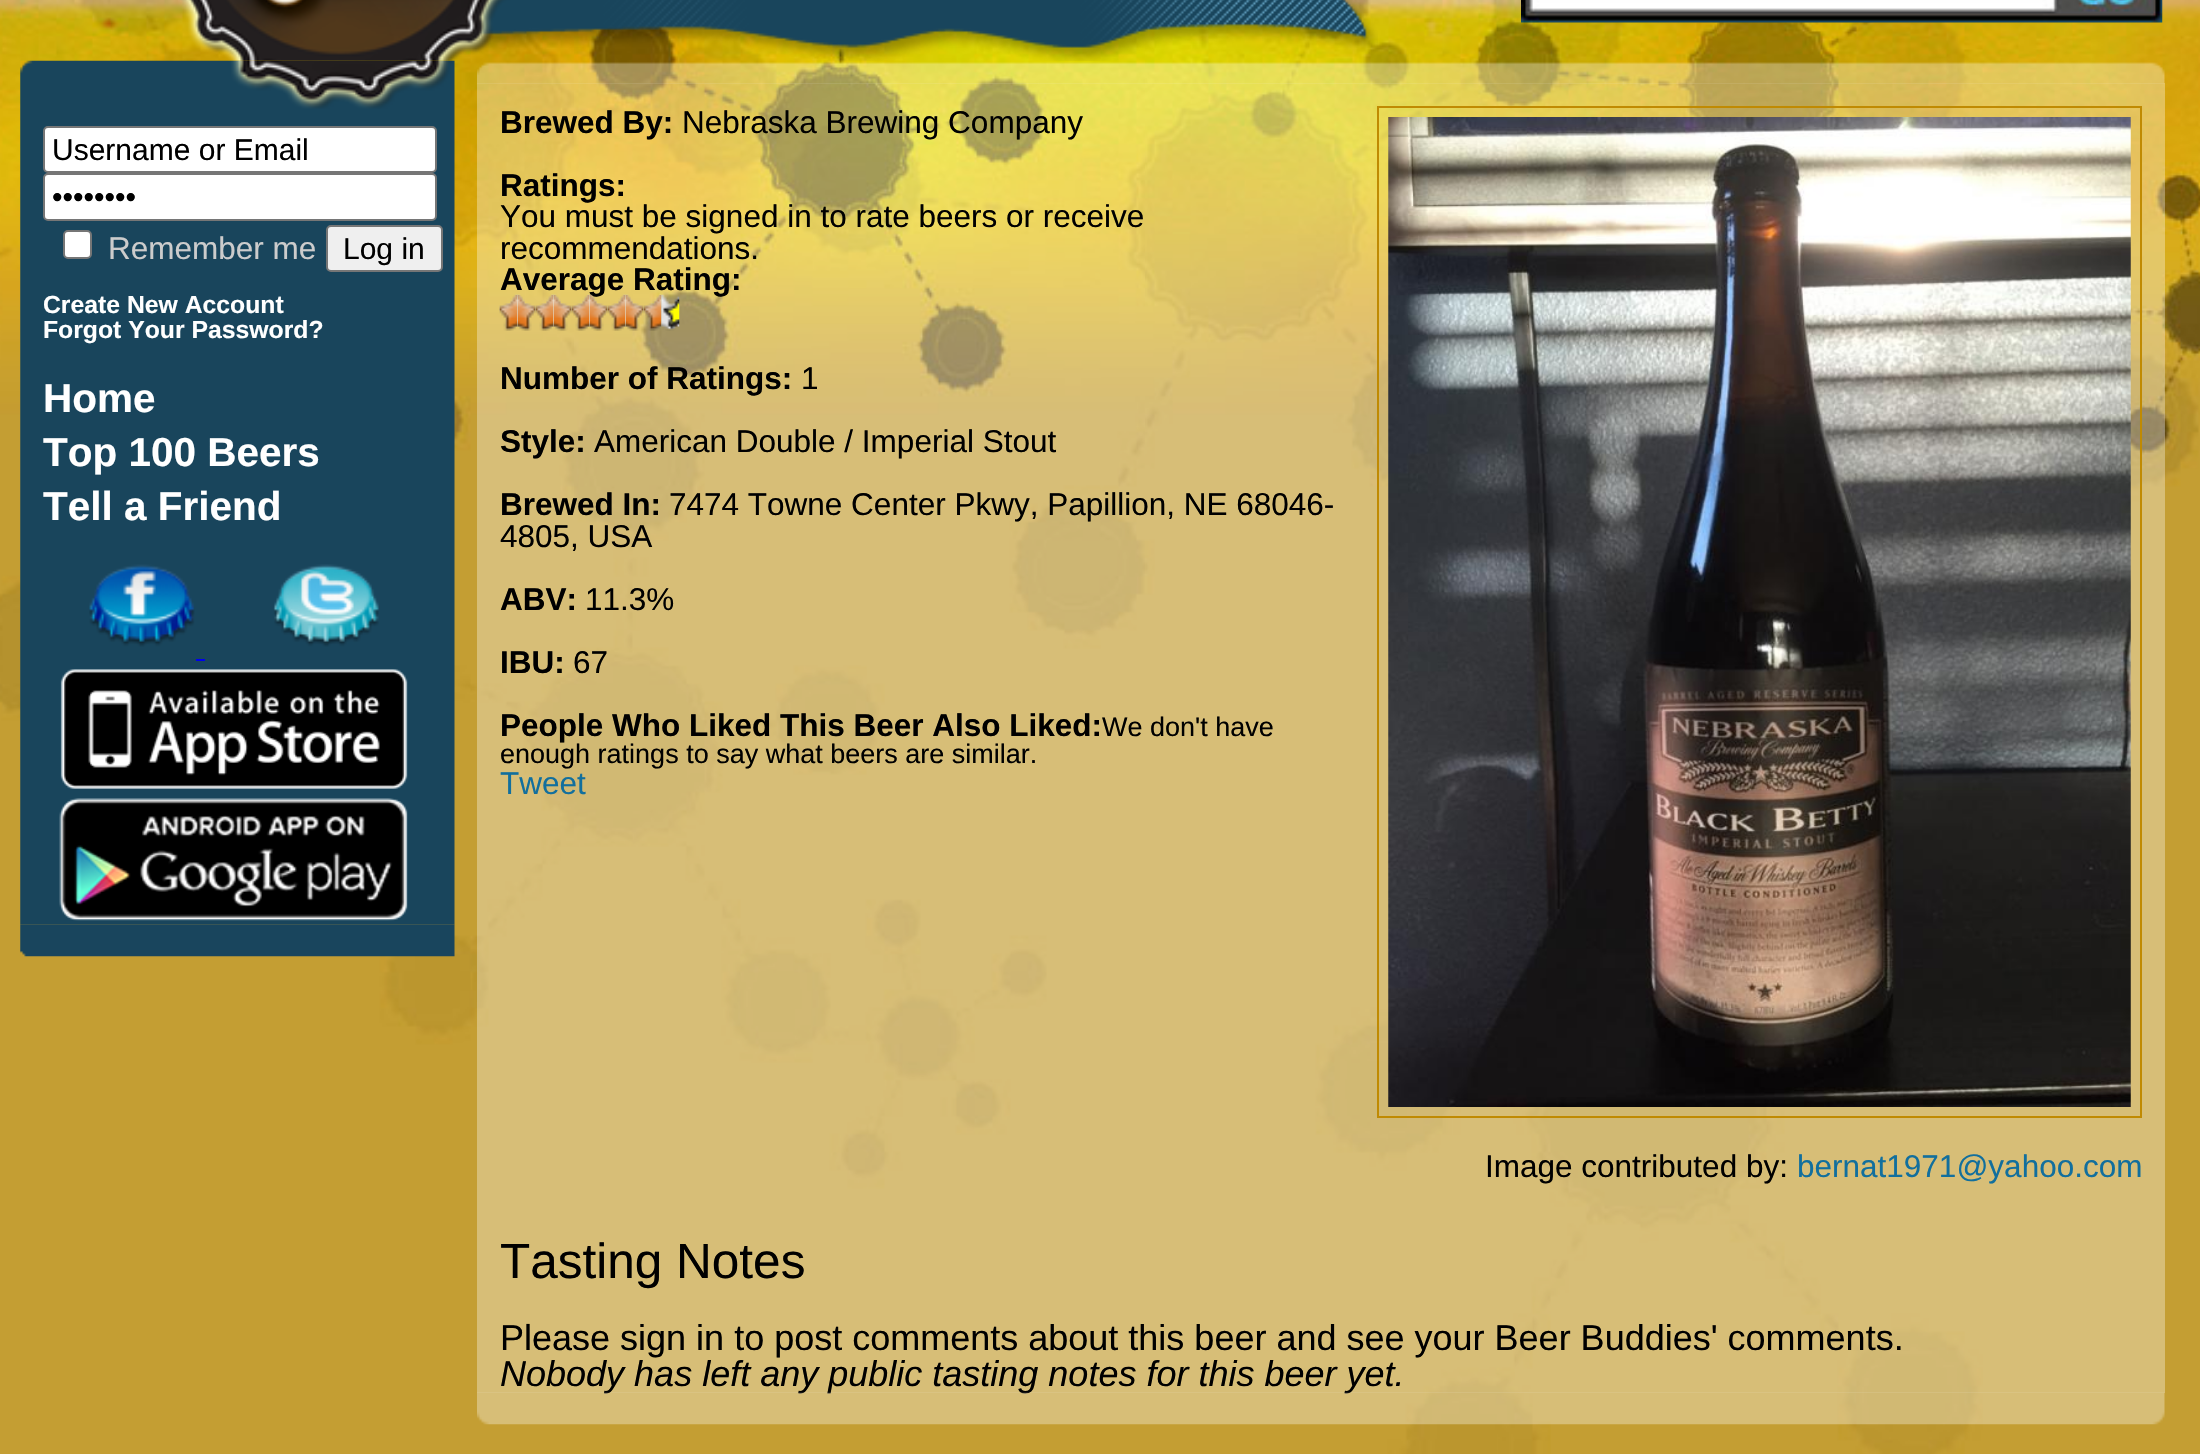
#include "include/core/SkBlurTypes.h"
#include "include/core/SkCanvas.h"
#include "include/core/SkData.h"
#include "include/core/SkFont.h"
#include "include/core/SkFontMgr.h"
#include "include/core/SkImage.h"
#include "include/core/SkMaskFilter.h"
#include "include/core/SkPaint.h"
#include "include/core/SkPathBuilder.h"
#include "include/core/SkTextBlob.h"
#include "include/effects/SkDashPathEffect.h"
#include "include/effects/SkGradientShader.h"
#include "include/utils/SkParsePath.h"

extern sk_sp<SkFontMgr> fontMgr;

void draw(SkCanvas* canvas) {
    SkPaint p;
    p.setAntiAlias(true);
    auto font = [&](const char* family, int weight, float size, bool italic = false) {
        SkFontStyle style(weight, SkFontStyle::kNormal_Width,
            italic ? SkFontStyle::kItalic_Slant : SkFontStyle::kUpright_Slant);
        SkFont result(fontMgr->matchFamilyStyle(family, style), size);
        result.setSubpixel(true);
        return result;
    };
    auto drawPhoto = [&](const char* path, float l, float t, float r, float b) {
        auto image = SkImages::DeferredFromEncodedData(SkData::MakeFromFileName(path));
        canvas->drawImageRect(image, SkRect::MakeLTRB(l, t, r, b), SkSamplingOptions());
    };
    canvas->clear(0xFFFFFFFF);
    drawPhoto("media/1.png", 0, 0, 2200, 1454);
    drawPhoto("media/2.png", 178, 0, 1378, 61);
    drawPhoto("media/3.png", 1521, 0, 2163, 23);
    drawPhoto("media/4.png", 20, 60, 455, 925);
    p.setColor(0xFFFFFFFF);
    canvas->drawRoundRect(SkRect::MakeLTRB(44, 127, 436, 172), 4, 4, p);
    p.setStyle(SkPaint::kStroke_Style);
    p.setStrokeWidth(2);
    p.setColor(0xFF767676);
    canvas->drawRoundRect(SkRect::MakeLTRB(44, 127, 436, 172), 4, 4, p);
    auto font1 = font("Liberation Sans", 400, 30);
    p.setStyle(SkPaint::kFill_Style);
    p.setColor(0xFF000000);
    canvas->drawString("Username or Email", 52, 160, font1, p);
    p.setColor(0xFFFFFFFF);
    canvas->drawRoundRect(SkRect::MakeLTRB(44, 174, 436, 220), 4, 4, p);
    p.setStyle(SkPaint::kStroke_Style);
    p.setColor(0xFF767676);
    canvas->drawRoundRect(SkRect::MakeLTRB(44, 174, 436, 220), 4, 4, p);
    p.setStyle(SkPaint::kFill_Style);
    p.setColor(0xFF000000);
    canvas->drawString("••••••••", 52, 207, font1, p);
    p.setColor(0xFFFFFFFF);
    canvas->drawRoundRect(SkRect::MakeLTRB(64, 231, 91, 258), 4, 4, p);
    p.setStyle(SkPaint::kStroke_Style);
    p.setColor(0xFF767676);
    canvas->drawRoundRect(SkRect::MakeLTRB(64, 231, 91, 258), 4, 4, p);
    auto font2 = font("Liberation Sans", 400, 31.5f);
    p.setStyle(SkPaint::kFill_Style);
    p.setColor(0xFFCCCCCC);
    canvas->drawString("Remember me", 108, 259, font2, p);
    p.setColor(0xFFEFEFEF);
    canvas->drawRoundRect(SkRect::MakeLTRB(327, 226, 442, 271), 4, 4, p);
    p.setStyle(SkPaint::kStroke_Style);
    p.setColor(0xFF767676);
    canvas->drawRoundRect(SkRect::MakeLTRB(327, 226, 442, 271), 4, 4, p);
    p.setStyle(SkPaint::kFill_Style);
    p.setColor(0xFF000000);
    canvas->drawString("Log in", 343, 259, font1, p);
    auto font3 = font("Liberation Sans", 700, 24.75f);
    p.setColor(0xFFFFFFFF);
    canvas->drawString("Create New Account", 43, 313, font3, p);
    canvas->drawString("Forgot Your Password?", 43, 338, font3, p);
    auto font4 = font("Liberation Sans", 700, 40.5f);
    {
        const struct { const char* s; float x, y; } items[] = {
            {"Home", 43, 412},
            {"Top 100 Beers", 43, 466},
            {"Tell a Friend", 43, 520},
        };
        for (auto [s, x, y] : items) {
            canvas->drawString(s, x, y, font4, p);
        }
    }
    drawPhoto("media/5.png", 89, 564, 195, 647);
    drawPhoto("media/6.png", 273, 564, 379, 647);
    p.setColor(0xFF0000EE);
    canvas->drawRect(SkRect::MakeLTRB(196, 659, 205, 661), p);
    drawPhoto("media/7.png", 60, 669, 408, 789);
    drawPhoto("media/8.png", 59, 798, 408, 921);
    drawPhoto("media/9.png", 20, 924, 455, 957);
    p.setColor(0x54FFFFFF);
    canvas->drawRect(SkRect::MakeLTRB(477, 83, 2165, 1393), p);
    drawPhoto("media/10.png", 477, 62, 2165, 84);
    auto font5 = font("Liberation Sans", 700, 31.5f);
    p.setColor(0xFF000000);
    canvas->drawString("Brewed By:", 500, 133, font5, p);
    canvas->drawString("Nebraska Brewing Company", 682, 133, font2, p);
    canvas->drawString("Ratings:", 500, 196, font5, p);
    canvas->drawString("You must be signed in to rate beers or receive", 500, 227, font2, p);
    canvas->drawString("recommendations.", 500, 259, font2, p);
    canvas->drawString("Average Rating:", 500, 290, font5, p);
    drawPhoto("media/11.png", 499, 294, 518, 331);
    drawPhoto("media/12.png", 499, 295, 518, 331);
    drawPhoto("media/13.png", 517, 294, 536, 331);
    drawPhoto("media/14.png", 517, 295, 536, 331);
    drawPhoto("media/15.png", 535, 294, 554, 331);
    drawPhoto("media/16.png", 535, 295, 554, 331);
    drawPhoto("media/17.png", 553, 294, 572, 331);
    drawPhoto("media/18.png", 553, 295, 572, 331);
    drawPhoto("media/19.png", 571, 294, 590, 331);
    drawPhoto("media/20.png", 571, 295, 590, 331);
    drawPhoto("media/21.png", 589, 294, 608, 331);
    drawPhoto("media/22.png", 589, 294, 608, 331);
    drawPhoto("media/23.png", 607, 294, 626, 331);
    drawPhoto("media/24.png", 607, 295, 626, 331);
    drawPhoto("media/25.png", 625, 294, 644, 331);
    drawPhoto("media/26.png", 625, 295, 644, 331);
    drawPhoto("media/27.png", 643, 294, 662, 331);
    drawPhoto("media/28.png", 643, 295, 662, 331);
    drawPhoto("media/29.png", 661, 294, 680, 331);
    drawPhoto("media/30.png", 661, 296, 680, 330);
    canvas->drawString("Number of Ratings:", 500, 389, font5, p);
    canvas->drawString("1", 801, 389, font2, p);
    canvas->drawString("Style:", 500, 452, font5, p);
    canvas->drawString("American Double / Imperial Stout", 594, 452, font2, p);
    canvas->drawString("Brewed In:", 500, 515, font5, p);
    canvas->drawString("7474 Towne Center Pkwy, Papillion, NE 68046-", 669, 515, font2, p);
    canvas->drawString("4805, USA", 500, 547, font2, p);
    canvas->drawString("ABV:", 500, 610, font5, p);
    canvas->drawString("11.3%", 585, 610, font2, p);
    canvas->drawString("IBU:", 500, 673, font5, p);
    canvas->drawString("67", 573, 673, font2, p);
    canvas->drawString("People Who Liked This Beer Also Liked:", 500, 736, font5, p);
    auto font6 = font("Liberation Sans", 400, 27);
    canvas->drawString("We don't have", 1102, 736, font6, p);
    canvas->drawString("enough ratings to say what beers are similar.", 500, 763, font6, p);
    p.setColor(0xFF126F9D);
    canvas->drawString("Tweet", 500, 794, font2, p);
    p.setStyle(SkPaint::kStroke_Style);
    p.setColor(0xFFC08A02);
    canvas->drawRect(SkRect::MakeLTRB(1378, 107, 2141, 1117), p);
    drawPhoto("media/31.png", 1388, 117, 2131, 1107);
    p.setStyle(SkPaint::kFill_Style);
    p.setColor(0xFF000000);
    canvas->drawString("Image contributed by:", 1485, 1177, font2, p);
    p.setColor(0xFF126F9D);
    canvas->drawString("bernat1971@yahoo.com", 1797, 1177, font2, p);
    auto font7 = font("Liberation Sans", 400, 49.5f);
    p.setColor(0xFF000000);
    canvas->drawString("Tasting Notes", 500, 1278, font7, p);
    auto font8 = font("Liberation Sans", 400, 36);
    canvas->drawString("Please sign in to post comments about this beer and see your Beer Buddies' comments.", 500, 1350, font8, p);
    auto font9 = font("Liberation Sans", 400, 36, true);
    canvas->drawString("Nobody has left any public tasting notes for this beer yet.", 500, 1386, font9, p);
    drawPhoto("media/32.png", 477, 1392, 2165, 1425);
}
